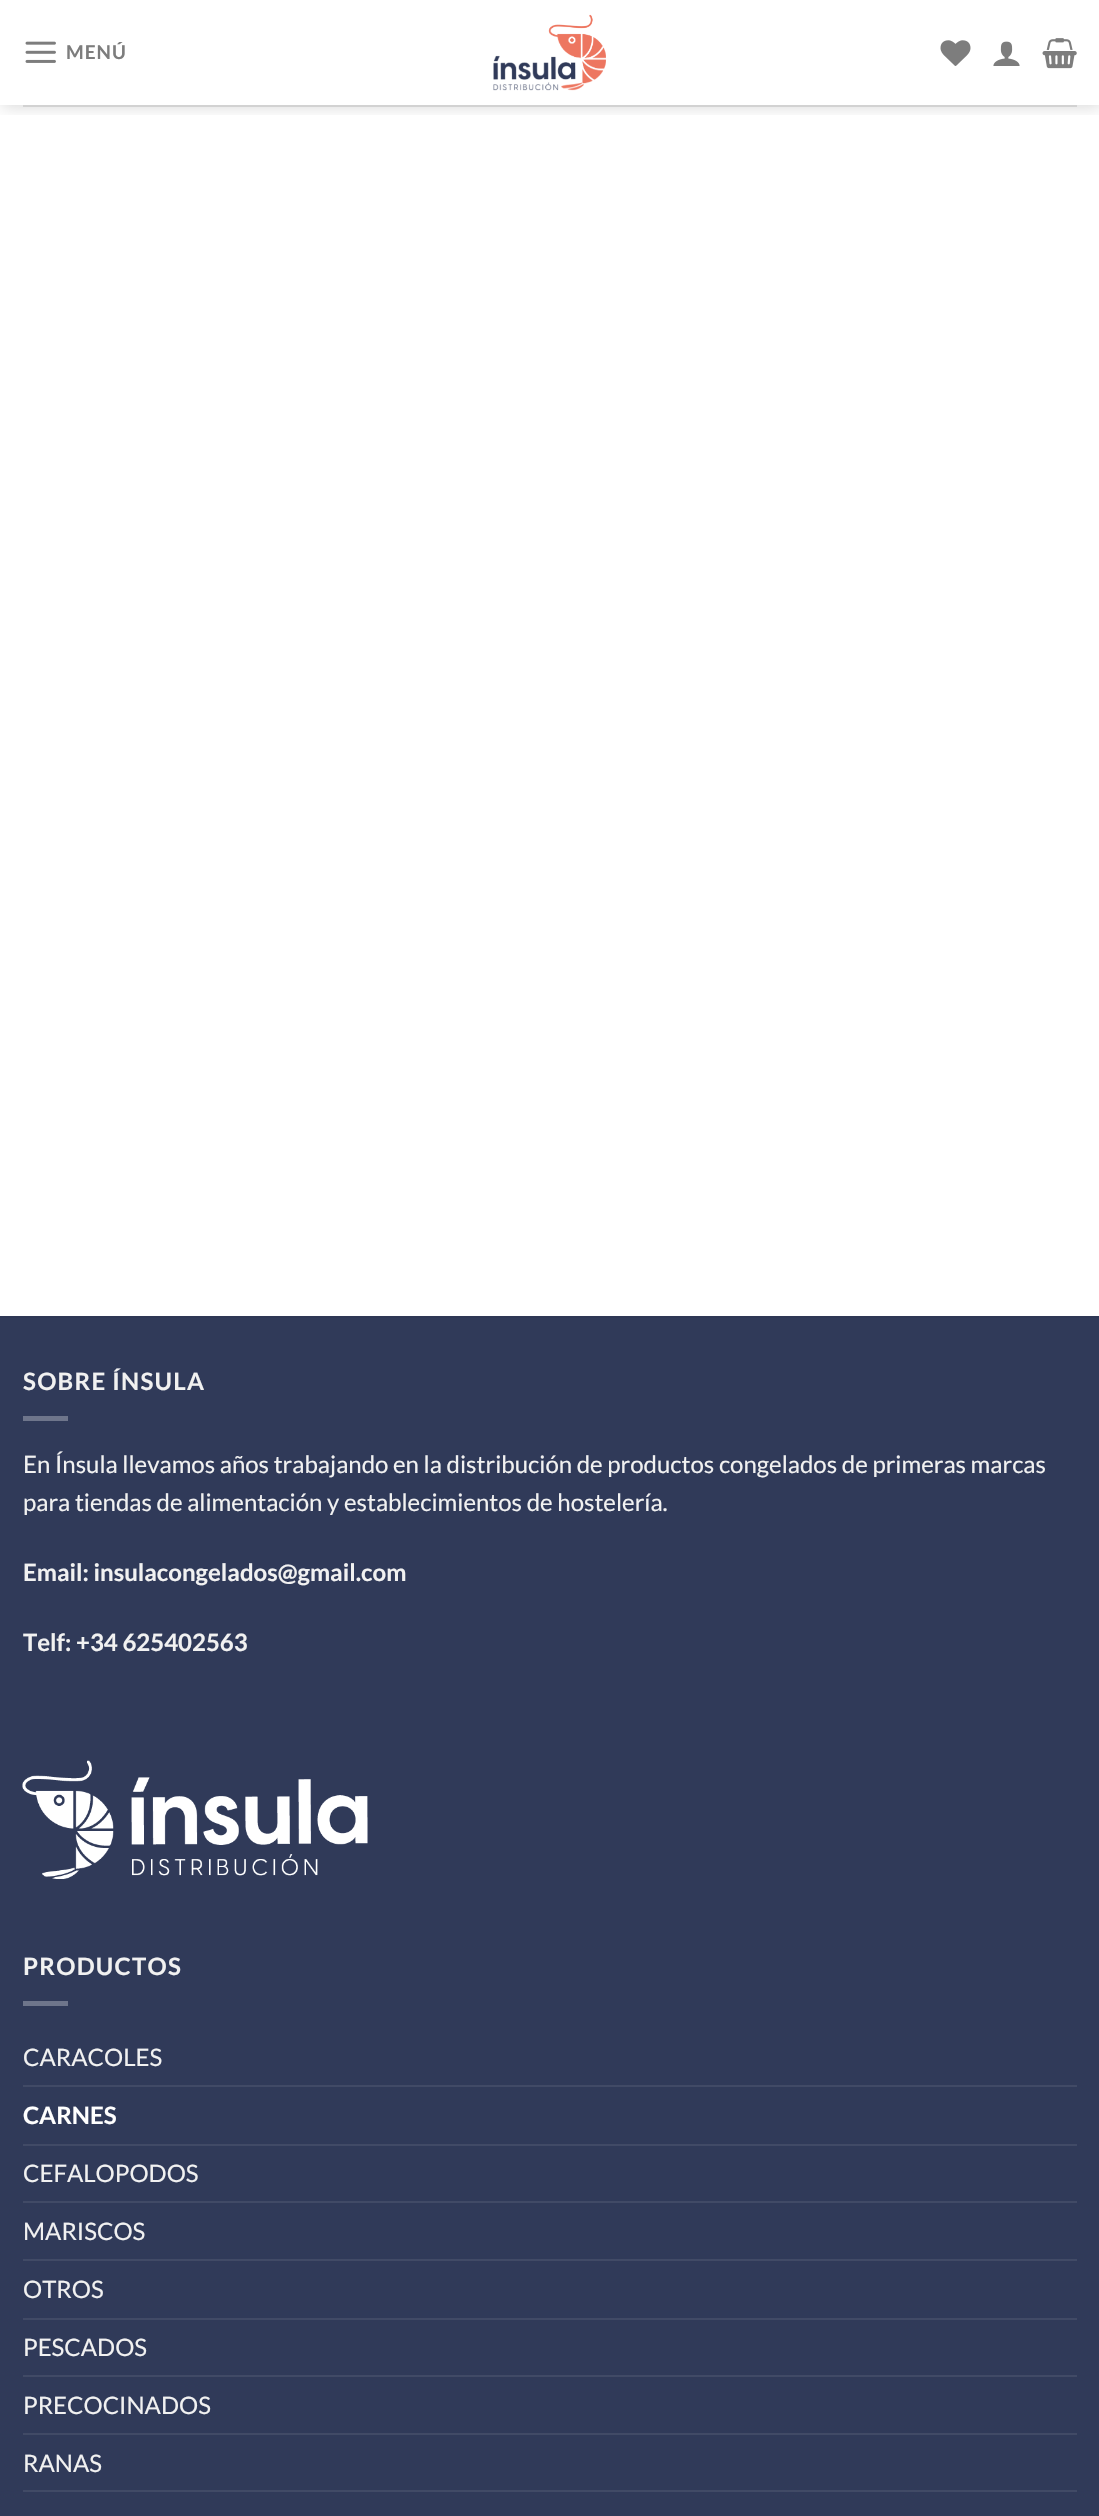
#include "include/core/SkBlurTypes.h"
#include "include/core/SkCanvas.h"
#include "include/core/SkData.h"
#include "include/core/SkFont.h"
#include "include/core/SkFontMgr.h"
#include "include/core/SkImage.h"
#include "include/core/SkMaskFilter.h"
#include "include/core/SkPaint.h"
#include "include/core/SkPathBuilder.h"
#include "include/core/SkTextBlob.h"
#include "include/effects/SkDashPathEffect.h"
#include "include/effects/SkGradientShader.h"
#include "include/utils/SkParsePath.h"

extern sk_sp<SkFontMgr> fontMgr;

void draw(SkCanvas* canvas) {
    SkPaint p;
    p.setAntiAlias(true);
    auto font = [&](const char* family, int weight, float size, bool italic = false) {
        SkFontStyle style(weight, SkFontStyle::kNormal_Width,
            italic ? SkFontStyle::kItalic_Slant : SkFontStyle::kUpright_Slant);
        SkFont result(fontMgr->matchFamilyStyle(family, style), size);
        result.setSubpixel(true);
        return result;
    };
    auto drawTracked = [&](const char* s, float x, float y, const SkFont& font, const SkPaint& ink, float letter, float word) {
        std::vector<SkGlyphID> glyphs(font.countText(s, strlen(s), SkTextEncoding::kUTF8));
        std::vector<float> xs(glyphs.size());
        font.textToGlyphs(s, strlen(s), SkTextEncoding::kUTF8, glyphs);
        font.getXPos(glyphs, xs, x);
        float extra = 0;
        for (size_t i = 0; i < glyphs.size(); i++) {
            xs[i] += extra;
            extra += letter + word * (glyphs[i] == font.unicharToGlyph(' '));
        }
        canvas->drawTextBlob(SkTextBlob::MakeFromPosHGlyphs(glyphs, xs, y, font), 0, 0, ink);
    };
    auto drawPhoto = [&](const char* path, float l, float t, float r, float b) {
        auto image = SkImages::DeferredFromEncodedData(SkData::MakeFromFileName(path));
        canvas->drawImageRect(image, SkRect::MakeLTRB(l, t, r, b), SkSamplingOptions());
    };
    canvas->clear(0xFFFFFFFF);
    canvas->save();
    canvas->clipRect(SkRect::MakeLTRB(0, 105, 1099, 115));
    p.setColor(0x26000000);
    p.setMaskFilter(SkMaskFilter::MakeBlur(kNormal_SkBlurStyle, 7.5f));
    canvas->drawRect(SkRect::MakeLTRB(2, 2, 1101, 107), p);
    p.setMaskFilter(nullptr);
    canvas->restore();
    drawPhoto("media/1.png", 25, 41, 56, 63);
    auto font1 = font("Lato", 700, 19);
    p.setColor(0xFF7D7D7D);
    drawTracked("MENÚ", 66, 59, font1, p, 1, 0);
    drawPhoto("media/2.png", 493, 14, 606, 91);
    drawPhoto("media/3.png", 940, 40, 971, 66);
    drawPhoto("media/4.png", 993, 41, 1020, 66);
    drawPhoto("media/5.png", 1042, 38, 1077, 69);
    {
        const struct { float l, t, r, b; SkColor color; } items[] = {
            {23, 105, 1077, 107, 0xFFD2D2D2},
            {0, 1318, 1099, 2516, 0xFF303A59},
            {0, 1316, 1099, 1318, 0xFF2E3755},
        };
        for (auto [l, t, r, b, color] : items) {
            p.setColor(color);
            canvas->drawRect(SkRect::MakeLTRB(l, t, r, b), p);
        }
    }
    auto font2 = font("Lato", 700, 24);
    p.setColor(0xFFF1F1F1);
    drawTracked("SOBRE ÍNSULA", 23, 1390, font2, p, 1.25f, 0);
    p.setColor(0xFF6E758B);
    canvas->drawRect(SkRect::MakeLTRB(23, 1416, 68, 1421), p);
    auto font3 = font("Lato", 400, 24);
    p.setColor(0xFFF1F1F1);
    canvas->drawString("En Ínsula llevamos años trabajando en la distribución de productos congelados de primeras marcas", 23, 1473, font3, p);
    canvas->drawString("para tiendas de alimentación y establecimientos de hostelería.", 23, 1511, font3, p);
    canvas->drawString("Email: insulacongelados@gmail.com", 23, 1581, font2, p);
    canvas->drawString("Telf: +34 625402563", 23, 1651, font2, p);
    drawPhoto("media/6.png", 22, 1760, 368, 1879);
    drawTracked("PRODUCTOS", 23, 1975, font2, p, 1.25f, 0);
    p.setColor(0xFF6E758B);
    canvas->drawRect(SkRect::MakeLTRB(23, 2001, 68, 2006), p);
    p.setColor(0xFFF1F1F1);
    canvas->drawString("CARACOLES", 23, 2066, font3, p);
    p.setColor(0xFF414A66);
    canvas->drawRect(SkRect::MakeLTRB(23, 2085, 1077, 2087), p);
    p.setColor(0xFFFFFFFF);
    canvas->drawString("CARNES", 23, 2124, font2, p);
    p.setColor(0xFF414A66);
    canvas->drawRect(SkRect::MakeLTRB(23, 2144, 1077, 2146), p);
    p.setColor(0xFFF1F1F1);
    canvas->drawString("CEFALOPODOS", 23, 2182, font3, p);
    p.setColor(0xFF414A66);
    canvas->drawRect(SkRect::MakeLTRB(23, 2201, 1077, 2203), p);
    p.setColor(0xFFF1F1F1);
    canvas->drawString("MARISCOS", 23, 2240, font3, p);
    p.setColor(0xFF414A66);
    canvas->drawRect(SkRect::MakeLTRB(23, 2259, 1077, 2261), p);
    p.setColor(0xFFF1F1F1);
    canvas->drawString("OTROS", 23, 2298, font3, p);
    p.setColor(0xFF414A66);
    canvas->drawRect(SkRect::MakeLTRB(23, 2318, 1077, 2320), p);
    p.setColor(0xFFF1F1F1);
    canvas->drawString("PESCADOS", 23, 2356, font3, p);
    p.setColor(0xFF414A66);
    canvas->drawRect(SkRect::MakeLTRB(23, 2375, 1077, 2377), p);
    p.setColor(0xFFF1F1F1);
    canvas->drawString("PRECOCINADOS", 23, 2414, font3, p);
    p.setColor(0xFF414A66);
    canvas->drawRect(SkRect::MakeLTRB(23, 2433, 1077, 2435), p);
    p.setColor(0xFFF1F1F1);
    canvas->drawString("RANAS", 23, 2472, font3, p);
    p.setColor(0xFF414A66);
    canvas->drawRect(SkRect::MakeLTRB(23, 2490, 1077, 2492), p);
}
